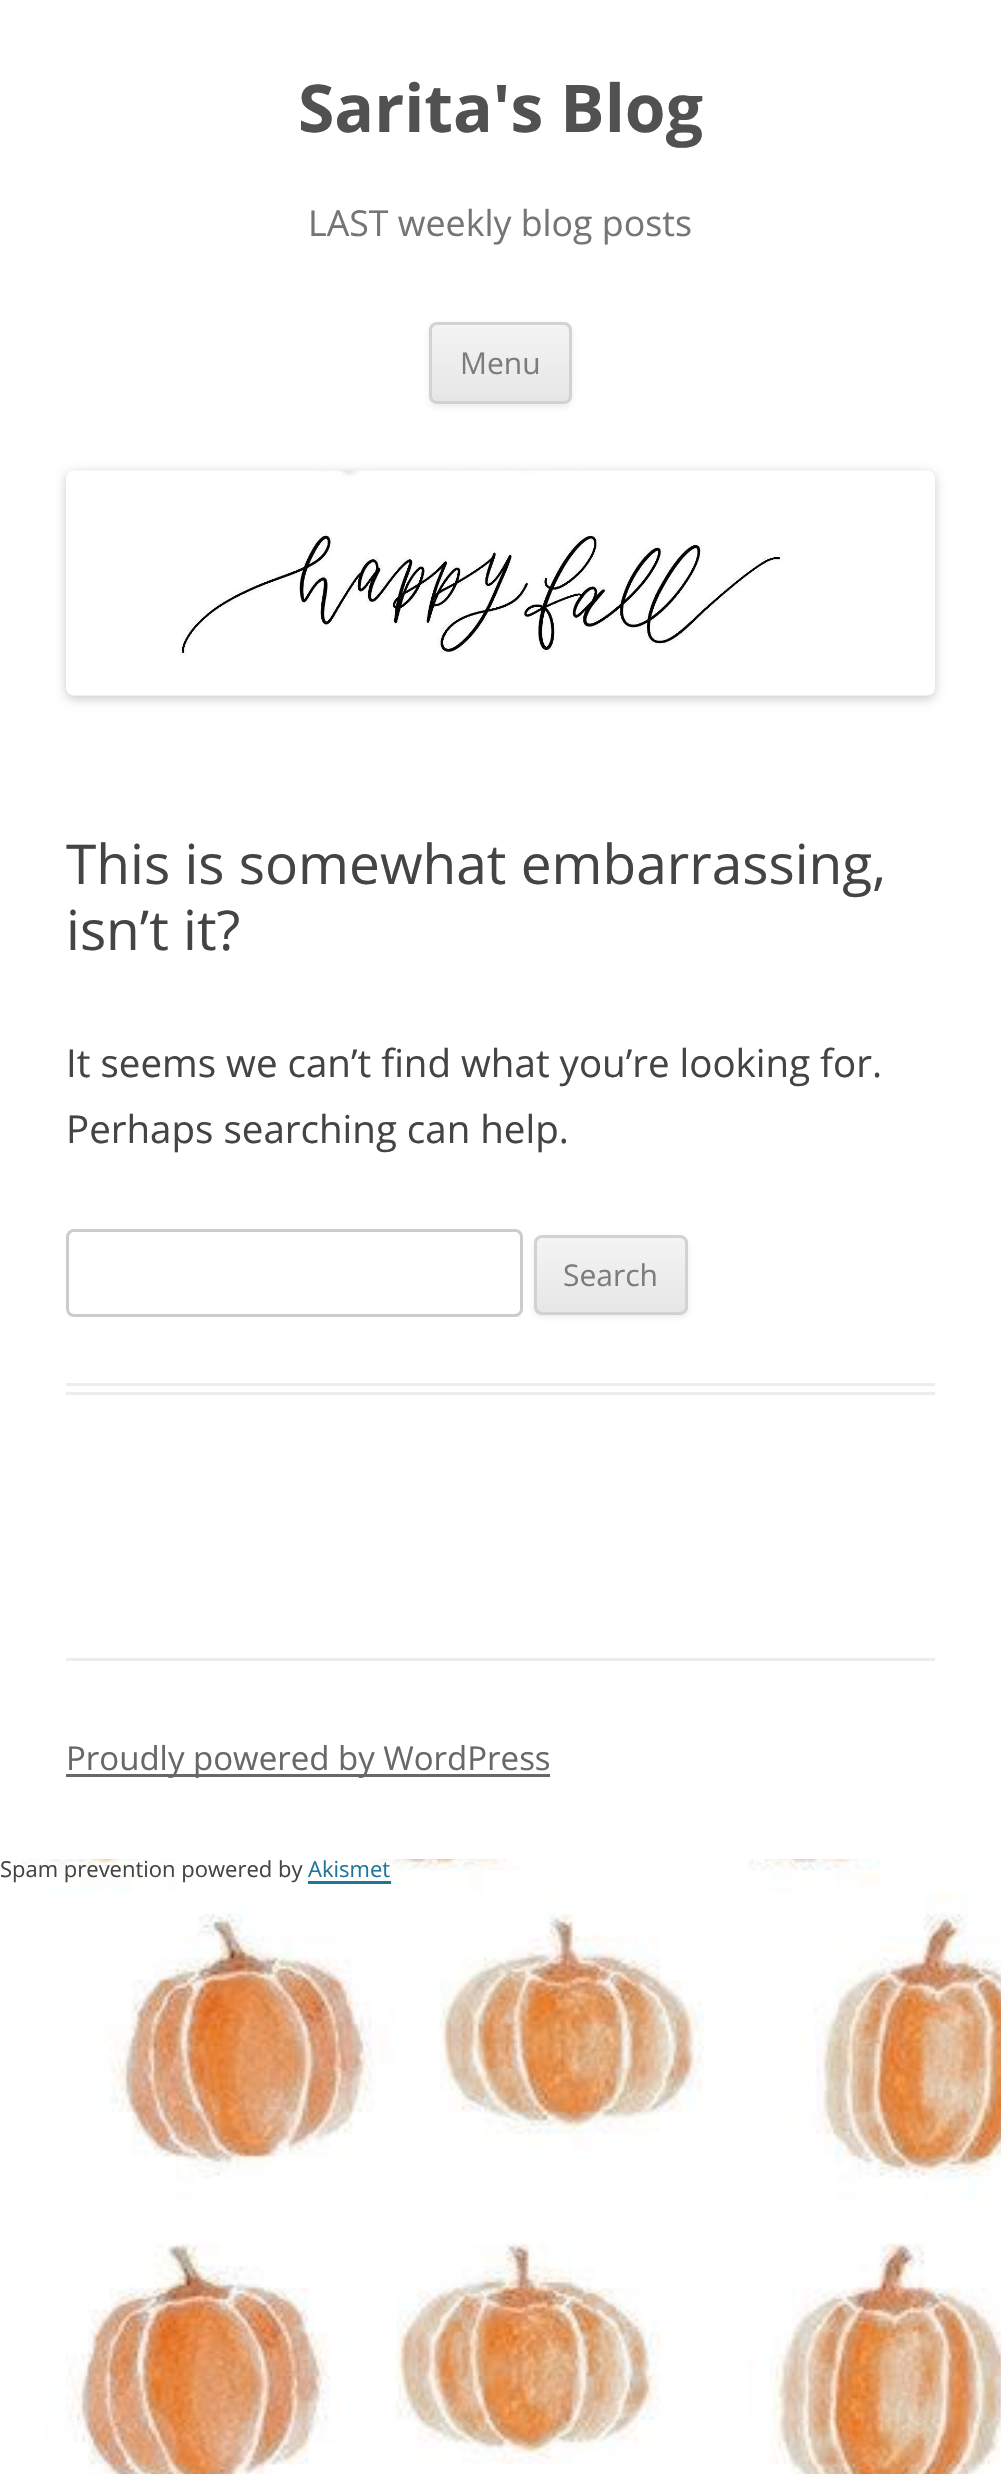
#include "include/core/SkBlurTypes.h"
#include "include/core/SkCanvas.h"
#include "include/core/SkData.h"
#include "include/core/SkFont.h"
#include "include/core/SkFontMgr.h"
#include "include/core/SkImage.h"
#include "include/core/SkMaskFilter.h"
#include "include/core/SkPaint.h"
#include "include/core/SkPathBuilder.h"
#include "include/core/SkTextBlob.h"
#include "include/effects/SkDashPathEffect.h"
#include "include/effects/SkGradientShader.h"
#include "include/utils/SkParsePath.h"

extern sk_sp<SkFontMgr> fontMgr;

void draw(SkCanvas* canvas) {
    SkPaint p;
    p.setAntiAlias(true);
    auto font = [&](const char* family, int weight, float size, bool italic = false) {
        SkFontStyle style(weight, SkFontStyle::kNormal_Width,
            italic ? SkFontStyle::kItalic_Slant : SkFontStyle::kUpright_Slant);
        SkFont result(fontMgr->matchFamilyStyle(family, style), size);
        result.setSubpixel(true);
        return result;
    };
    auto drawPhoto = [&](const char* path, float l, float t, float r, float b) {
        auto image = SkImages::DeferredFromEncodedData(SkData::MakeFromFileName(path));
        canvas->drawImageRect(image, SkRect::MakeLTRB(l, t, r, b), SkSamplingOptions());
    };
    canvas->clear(0xFFFFFFFF);
    drawPhoto("media/1.png", 0, 1859, 1001, 2474);
    auto font1 = font("Open Sans", 700, 66);
    p.setColor(0xFF515151);
    canvas->drawString("Sarita's Blog", 298, 132, font1, p);
    auto font2 = font("Open Sans", 400, 35.75f);
    p.setColor(0xFF757575);
    canvas->drawString("LAST weekly blog posts", 308, 236, font2, p);
    p.setColor(0x1A404040);
    p.setMaskFilter(SkMaskFilter::MakeBlur(kNormal_SkBlurStyle, 3));
    canvas->drawRoundRect(SkRect::MakeLTRB(429, 325, 572, 407), 8, 8, p);
    p.setMaskFilter(nullptr);
    canvas->save();
    canvas->clipPath(SkPathBuilder().moveTo(437, 322).lineTo(564, 322).cubicTo(568.5f, 322, 572, 325.5f, 572, 330).lineTo(572, 396).cubicTo(572, 400.5f, 568.5f, 404, 564, 404).lineTo(437, 404).cubicTo(432.5f, 404, 429, 400.5f, 429, 396).lineTo(429, 330).cubicTo(429, 325.5f, 432.5f, 322, 437, 322).close().detach(), true);
    {
        const SkColor colors[] = {0xFFF4F4F4, 0xFFE6E6E6};
        const float stops[] = {0, 1};
        const SkPoint ends[] = {{501, 325}, {501, 402}};
        p.setShader(SkGradientShader::MakeLinear(ends, colors, stops, 2, SkTileMode::kClamp));
        p.setAlpha(255);
    }
    canvas->drawRect(SkRect::MakeLTRB(429, 325, 572, 402), p);
    canvas->restore();
    p.setStyle(SkPaint::kStroke_Style);
    p.setStrokeWidth(3);
    p.setShader(nullptr);
    p.setColor(0xFFD2D2D2);
    canvas->drawRoundRect(SkRect::MakeLTRB(430.5f, 323.5f, 570.5f, 402.5f), 6.5f, 6.5f, p);
    auto font3 = font("Open Sans", 400, 30);
    p.setStyle(SkPaint::kFill_Style);
    p.setColor(0xFF7C7C7C);
    canvas->drawString("Menu", 460, 374, font3, p);
    p.setColor(0x33000000);
    p.setMaskFilter(SkMaskFilter::MakeBlur(kNormal_SkBlurStyle, 5.5f));
    canvas->drawRoundRect(SkRect::MakeLTRB(66, 473, 935, 699), 8, 8, p);
    p.setMaskFilter(nullptr);
    drawPhoto("media/2.png", 66, 470, 935, 696);
    p.setColor(0xFFEDEDED);
    canvas->drawRect(SkRect::MakeLTRB(66, 1383, 935, 1386), p);
    canvas->drawRect(SkRect::MakeLTRB(66, 1392, 935, 1395), p);
    auto font4 = font("Open Sans", 400, 55);
    p.setColor(0xFF444444);
    canvas->drawString("This is somewhat embarrassing,", 66, 884, font4, p);
    canvas->drawString("isn’t it?", 66, 950, font4, p);
    auto font5 = font("Open Sans", 400, 38.5f);
    canvas->drawString("It seems we can’t find what you’re looking for.", 66, 1077, font5, p);
    canvas->drawString("Perhaps searching can help.", 66, 1143, font5, p);
    p.setStyle(SkPaint::kStroke_Style);
    p.setColor(0xFFCCCCCC);
    canvas->drawRoundRect(SkRect::MakeLTRB(67.5f, 1230.5f, 521.5f, 1315.5f), 6.5f, 6.5f, p);
    p.setStyle(SkPaint::kFill_Style);
    p.setColor(0x1A404040);
    p.setMaskFilter(SkMaskFilter::MakeBlur(kNormal_SkBlurStyle, 3));
    canvas->drawRoundRect(SkRect::MakeLTRB(534, 1238, 688, 1317), 8, 8, p);
    p.setMaskFilter(nullptr);
    canvas->save();
    canvas->clipPath(SkPathBuilder().moveTo(542, 1235).lineTo(680, 1235).cubicTo(684.5f, 1235, 688, 1238.5f, 688, 1243).lineTo(688, 1307).cubicTo(688, 1311.5f, 684.5f, 1315, 680, 1315).lineTo(542, 1315).cubicTo(537.5f, 1315, 534, 1311.5f, 534, 1307).lineTo(534, 1243).cubicTo(534, 1238.5f, 537.5f, 1235, 542, 1235).close().detach(), true);
    {
        const SkColor colors[] = {0xFFF4F4F4, 0xFFE6E6E6};
        const float stops[] = {0, 1};
        const SkPoint ends[] = {{611, 1238}, {611, 1312}};
        p.setShader(SkGradientShader::MakeLinear(ends, colors, stops, 2, SkTileMode::kClamp));
        p.setAlpha(255);
    }
    canvas->drawRect(SkRect::MakeLTRB(534, 1238, 688, 1312), p);
    canvas->restore();
    p.setStyle(SkPaint::kStroke_Style);
    p.setShader(nullptr);
    p.setColor(0xFFD2D2D2);
    canvas->drawRoundRect(SkRect::MakeLTRB(535.5f, 1236.5f, 686.5f, 1313.5f), 6.5f, 6.5f, p);
    p.setStyle(SkPaint::kFill_Style);
    p.setColor(0xFF7C7C7C);
    canvas->drawString("Search", 563, 1286, font3, p);
    p.setColor(0xFFEDEDED);
    canvas->drawRect(SkRect::MakeLTRB(66, 1658, 935, 1661), p);
    p.setColor(0xFF686868);
    canvas->drawRect(SkRect::MakeLTRB(66, 1774, 550, 1777), p);
    auto font6 = font("Open Sans", 400, 33);
    canvas->drawString("Proudly powered by WordPress", 66, 1770, font6, p);
    auto font7 = font("Open Sans", 400, 22);
    p.setColor(0xFF444444);
    canvas->drawString("Spam prevention powered by", 0, 1877, font7, p);
    p.setColor(0xFF21759B);
    canvas->drawString("Akismet", 308, 1877, font7, p);
    canvas->drawRect(SkRect::MakeLTRB(308, 1881, 391, 1884), p);
}
